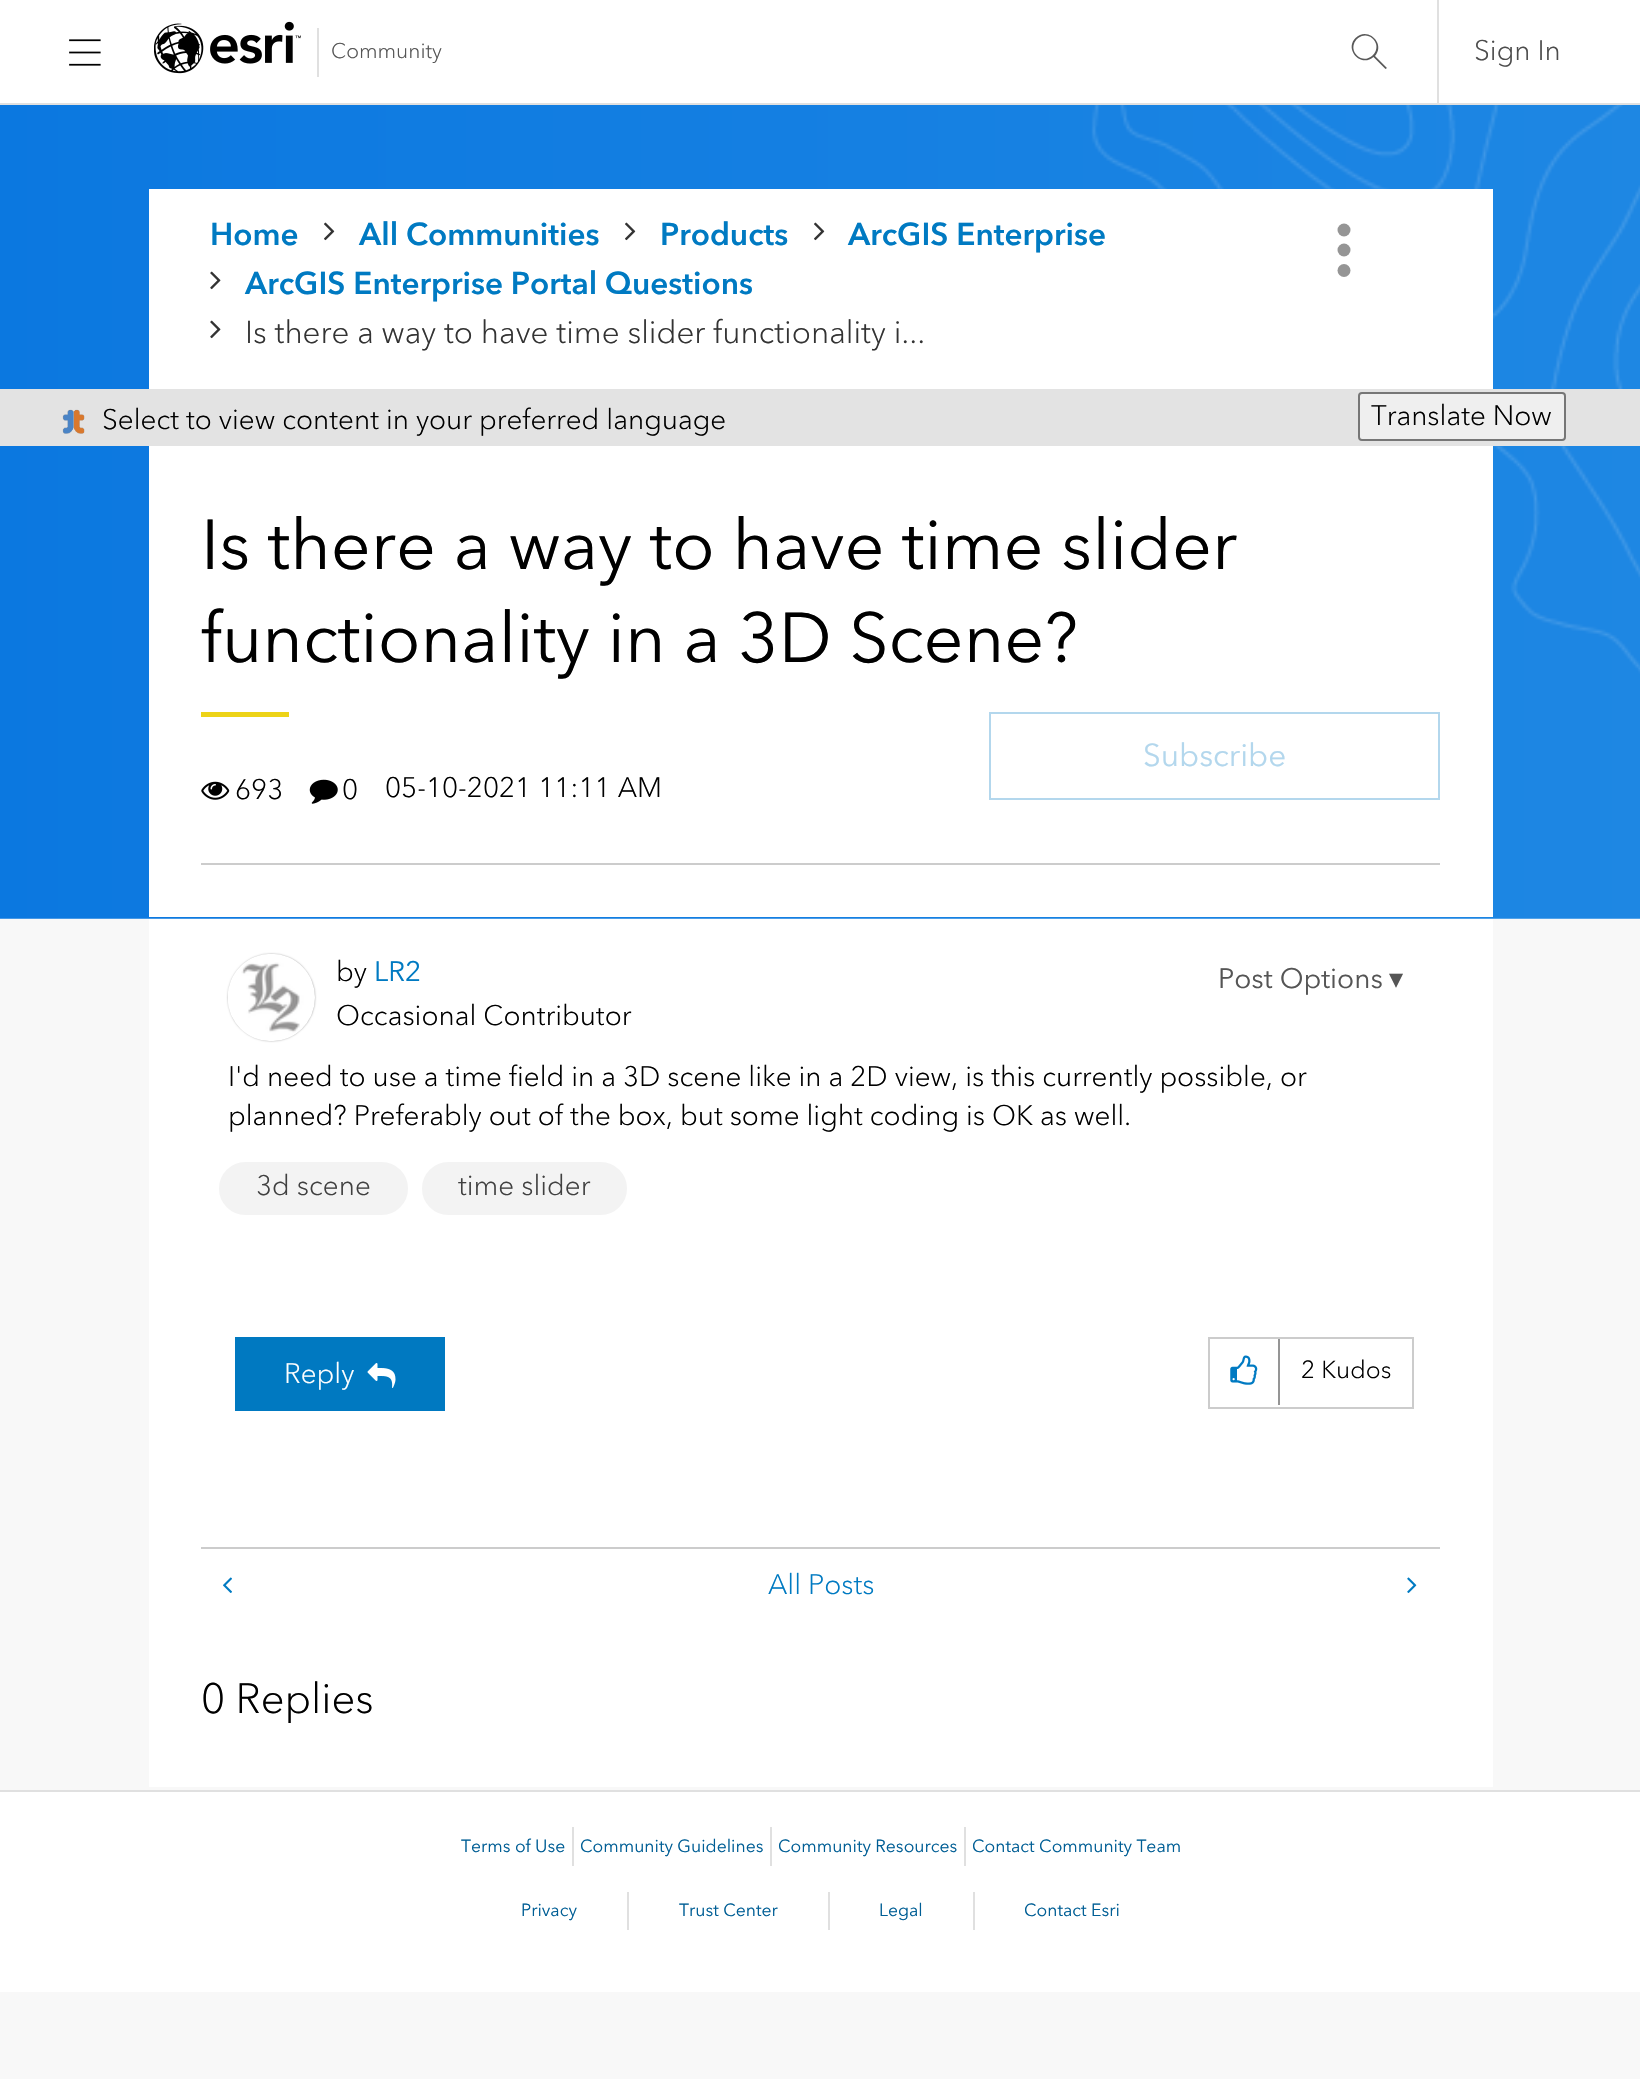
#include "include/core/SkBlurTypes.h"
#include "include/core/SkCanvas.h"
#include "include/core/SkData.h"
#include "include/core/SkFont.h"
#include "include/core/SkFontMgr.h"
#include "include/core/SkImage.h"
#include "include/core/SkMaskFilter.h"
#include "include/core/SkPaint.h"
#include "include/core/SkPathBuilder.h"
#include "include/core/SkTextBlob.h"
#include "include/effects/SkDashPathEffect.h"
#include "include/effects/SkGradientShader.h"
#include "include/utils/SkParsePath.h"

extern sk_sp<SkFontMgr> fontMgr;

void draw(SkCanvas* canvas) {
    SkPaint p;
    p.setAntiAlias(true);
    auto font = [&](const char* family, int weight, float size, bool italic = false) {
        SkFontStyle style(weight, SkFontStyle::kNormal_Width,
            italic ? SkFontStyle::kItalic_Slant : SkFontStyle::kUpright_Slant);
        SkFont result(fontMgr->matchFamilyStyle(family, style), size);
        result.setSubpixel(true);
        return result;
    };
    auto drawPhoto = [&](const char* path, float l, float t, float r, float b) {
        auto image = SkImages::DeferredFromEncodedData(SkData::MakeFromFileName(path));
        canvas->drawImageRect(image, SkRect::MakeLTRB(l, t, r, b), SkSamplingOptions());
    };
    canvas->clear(0xFFF8F8F8);
    p.setColor(0xFFFFFFFF);
    canvas->drawRect(SkRect::MakeLTRB(0, 0, 1640, 103), p);
    p.setColor(0xFFE0E0E0);
    canvas->drawRect(SkRect::MakeLTRB(0, 103, 1640, 105), p);
    drawPhoto("media/1.png", 69, 39, 101, 66);
    drawPhoto("media/2.png", 154, 21, 301, 74);
    canvas->drawRect(SkRect::MakeLTRB(317, 28, 319, 77), p);
    auto font1 = font("Avenir Next", 300, 21);
    p.setColor(0xFF555555);
    canvas->drawString("Community", 331, 58, font1, p);
    p.setColor(0xFFE0E0E0);
    canvas->drawRect(SkRect::MakeLTRB(1437, 0, 1439, 103), p);
    p.setColor(0xFF595959);
    canvas->drawPath(SkPathBuilder().moveTo(1387, 68).lineTo(1375, 56).cubicTo(1386, 43.5f, 1367.5f, 26, 1355.5f, 38).cubicTo(1344, 49.5f, 1361, 68, 1373.5f, 57).lineTo(1385.5f, 69).close().moveTo(1357, 55.5f).cubicTo(1346.5f, 45, 1361.5f, 29, 1372.5f, 38.5f).cubicTo(1384, 49, 1368, 66, 1357, 55.5f).close().detach(), p);
    auto font2 = font("Avenir Next", 300, 28);
    p.setColor(0xFF4C4C4C);
    canvas->drawString("Sign In", 1474, 60, font2, p);
    drawPhoto("media/3.png", 0, 105, 1640, 919);
    p.setColor(0xFFFFFFFF);
    canvas->drawRect(SkRect::MakeLTRB(149, 189, 1493, 389), p);
    auto font3 = font("Avenir Next", 700, 31.5f);
    p.setColor(0xFF007AC2);
    canvas->drawString("Home", 210, 245, font3, p);
    drawPhoto("media/4.png", 324, 222, 335, 241);
    canvas->drawString("All Communities", 359, 245, font3, p);
    drawPhoto("media/4.png", 625, 222, 636, 241);
    canvas->drawString("Products", 660, 245, font3, p);
    drawPhoto("media/4.png", 814, 222, 825, 241);
    canvas->drawString("ArcGIS Enterprise", 848, 245, font3, p);
    drawPhoto("media/5.png", 210, 271, 221, 290);
    canvas->drawString("ArcGIS Enterprise Portal Questions", 245, 294, font3, p);
    drawPhoto("media/5.png", 210, 320, 221, 339);
    auto font4 = font("Avenir Next", 300, 31.5f);
    p.setColor(0xFF333333);
    canvas->drawString("Is there a way to have time slider functionality i...", 245, 343, font4, p);
    p.setColor(0xFF959595);
    canvas->drawCircle(1344, 230, 6.5f, p);
    canvas->drawCircle(1344, 250, 6.5f, p);
    canvas->drawCircle(1344, 270.5f, 6.5f, p);
    p.setColor(0xFFE3E3E3);
    canvas->drawRect(SkRect::MakeLTRB(0, 389, 1640, 446), p);
    drawPhoto("media/6.png", 62, 409, 85, 434);
    p.setColor(0xFF000000);
    canvas->drawString("Select to view content in your preferred language", 102, 429, font2, p);
    p.setColor(0xFFEFEFEF);
    canvas->drawRoundRect(SkRect::MakeLTRB(1359, 393, 1565, 440), 3, 3, p);
    p.setStyle(SkPaint::kStroke_Style);
    p.setStrokeWidth(2);
    p.setColor(0xFF767676);
    canvas->drawRoundRect(SkRect::MakeLTRB(1359, 393, 1565, 440), 3, 3, p);
    p.setStyle(SkPaint::kFill_Style);
    p.setColor(0xFF000000);
    canvas->drawString("Translate Now", 1371, 425, font2, p);
    p.setColor(0xFFFFFFFF);
    canvas->drawRect(SkRect::MakeLTRB(149, 446, 1493, 917), p);
    auto font5 = font("Avenir Next", 400, 70);
    p.setColor(0xFF000000);
    canvas->drawString("Is there a way to have time slider", 201, 569, font5, p);
    canvas->drawString("functionality in a 3D Scene?", 201, 662, font5, p);
    p.setColor(0xFFEDD317);
    canvas->drawRect(SkRect::MakeLTRB(201, 712, 289, 717), p);
    p.setStyle(SkPaint::kStroke_Style);
    p.setColor(0xFFB3D7ED);
    canvas->drawRect(SkRect::MakeLTRB(990, 713, 1439, 799), p);
    auto font6 = font("Avenir Next", 400, 31.5f);
    p.setStyle(SkPaint::kFill_Style);
    canvas->drawString("Subscribe", 1143, 766, font6, p);
    drawPhoto("media/7.png", 201, 781, 230, 800);
    p.setColor(0xFF000000);
    canvas->drawString("693", 235, 799, font2, p);
    drawPhoto("media/8.png", 309, 779, 338, 804);
    canvas->drawString("0", 342, 799, font2, p);
    canvas->drawString("05-10-2021 11:11 AM", 385, 797, font2, p);
    p.setColor(0xFFCCCCCC);
    canvas->drawRect(SkRect::MakeLTRB(201, 863, 1440, 865), p);
    p.setColor(0xFFFFFFFF);
    canvas->drawRect(SkRect::MakeLTRB(149, 919, 1493, 1787), p);
    p.setColor(0xFF959595);
    p.setMaskFilter(SkMaskFilter::MakeBlur(kNormal_SkBlurStyle, 1));
    canvas->drawRoundRect(SkRect::MakeLTRB(228, 954, 315, 1041), 43.5f, 43.5f, p);
    p.setMaskFilter(nullptr);
    drawPhoto("media/9.png", 228, 954, 315, 1041);
    p.setColor(0xFF000000);
    canvas->drawString("by", 336, 981, font2, p);
    auto font7 = font("Avenir Next", 400, 28);
    p.setColor(0xFF007AC2);
    canvas->drawString("LR2", 374, 981, font7, p);
    p.setColor(0xFF000000);
    canvas->drawString("Occasional Contributor", 336, 1025, font2, p);
    p.setColor(0xFF555555);
    canvas->drawString("Post Options", 1218, 988, font7, p);
    auto font8 = font("DejaVu Sans", 400, 28);
    canvas->drawString("▾", 1389, 988, font8, p);
    p.setColor(0xFF000000);
    canvas->drawString("I'd need to use a time field in a 3D scene like in a 2D view, is this currently possible, or", 228, 1086, font2, p);
    canvas->drawString("planned? Preferably out of the box, but some light coding is OK as well.", 228, 1125, font2, p);
    p.setColor(0xFFF3F3F3);
    canvas->drawRoundRect(SkRect::MakeLTRB(220, 1163, 407, 1214), 25.5f, 25.5f, p);
    p.setStyle(SkPaint::kStroke_Style);
    canvas->drawRoundRect(SkRect::MakeLTRB(220, 1163, 407, 1214), 25.5f, 25.5f, p);
    p.setStyle(SkPaint::kFill_Style);
    p.setColor(0xFF404040);
    canvas->drawString("3d scene", 256, 1195, font2, p);
    p.setColor(0xFFF3F3F3);
    canvas->drawRoundRect(SkRect::MakeLTRB(423, 1163, 626, 1214), 25.5f, 25.5f, p);
    p.setStyle(SkPaint::kStroke_Style);
    canvas->drawRoundRect(SkRect::MakeLTRB(423, 1163, 626, 1214), 25.5f, 25.5f, p);
    p.setStyle(SkPaint::kFill_Style);
    p.setColor(0xFF404040);
    canvas->drawString("time slider", 458, 1195, font2, p);
    p.setColor(0xFF0079C1);
    canvas->drawRect(SkRect::MakeLTRB(235, 1337, 445, 1411), p);
    p.setColor(0xFFFFFFFF);
    canvas->drawString("Reply", 284, 1383, font2, p);
    drawPhoto("media/10.png", 367, 1363, 396, 1388);
    p.setStyle(SkPaint::kStroke_Style);
    p.setColor(0xFFCCCCCC);
    canvas->drawRect(SkRect::MakeLTRB(1209, 1338, 1413, 1408), p);
    drawPhoto("media/11.png", 1230, 1355, 1258, 1385);
    p.setStyle(SkPaint::kFill_Style);
    p.setColor(0xFF959595);
    canvas->drawRect(SkRect::MakeLTRB(1278, 1339, 1280, 1405), p);
    auto font9 = font("Avenir Next", 300, 24.5f);
    p.setColor(0xFF000000);
    canvas->drawString("2 Kudos", 1301, 1378, font9, p);
    p.setColor(0xFFCCCCCC);
    canvas->drawRect(SkRect::MakeLTRB(201, 1547, 1440, 1549), p);
    drawPhoto("media/12.png", 223, 1577, 232, 1593);
    p.setColor(0xFF007AC2);
    canvas->drawString("All Posts", 768, 1594, font2, p);
    drawPhoto("media/13.png", 1407, 1577, 1417, 1593);
    auto font10 = font("Avenir Next", 300, 42);
    p.setColor(0xFF000000);
    canvas->drawString("0 Replies", 201, 1713, font10, p);
    p.setColor(0xFFFFFFFF);
    canvas->drawRect(SkRect::MakeLTRB(0, 1792, 1640, 1992), p);
    p.setColor(0xFFE0E0E0);
    canvas->drawRect(SkRect::MakeLTRB(0, 1790, 1640, 1792), p);
    auto font11 = font("Avenir Next", 400, 17.5f);
    p.setColor(0xFF005E95);
    canvas->drawString("Terms of Use", 461, 1852, font11, p);
    p.setColor(0xFFE0E0E0);
    canvas->drawRect(SkRect::MakeLTRB(572, 1827, 574, 1866), p);
    p.setColor(0xFF005E95);
    canvas->drawString("Community Guidelines", 580, 1852, font11, p);
    p.setColor(0xFFE0E0E0);
    canvas->drawRect(SkRect::MakeLTRB(770, 1827, 772, 1866), p);
    p.setColor(0xFF005E95);
    canvas->drawString("Community Resources", 778, 1852, font11, p);
    p.setColor(0xFFE0E0E0);
    canvas->drawRect(SkRect::MakeLTRB(964, 1827, 966, 1866), p);
    p.setColor(0xFF005E95);
    canvas->drawString("Contact Community Team", 972, 1852, font11, p);
    canvas->drawString("Privacy", 521, 1916, font11, p);
    p.setColor(0xFFE0E0E0);
    canvas->drawRect(SkRect::MakeLTRB(627, 1892, 629, 1930), p);
    p.setColor(0xFF005E95);
    canvas->drawString("Trust Center", 679, 1916, font11, p);
    p.setColor(0xFFE0E0E0);
    canvas->drawRect(SkRect::MakeLTRB(828, 1892, 830, 1930), p);
    p.setColor(0xFF005E95);
    canvas->drawString("Legal", 879, 1916, font11, p);
    p.setColor(0xFFE0E0E0);
    canvas->drawRect(SkRect::MakeLTRB(973, 1892, 975, 1930), p);
    p.setColor(0xFF005E95);
    canvas->drawString("Contact Esri", 1024, 1916, font11, p);
}
